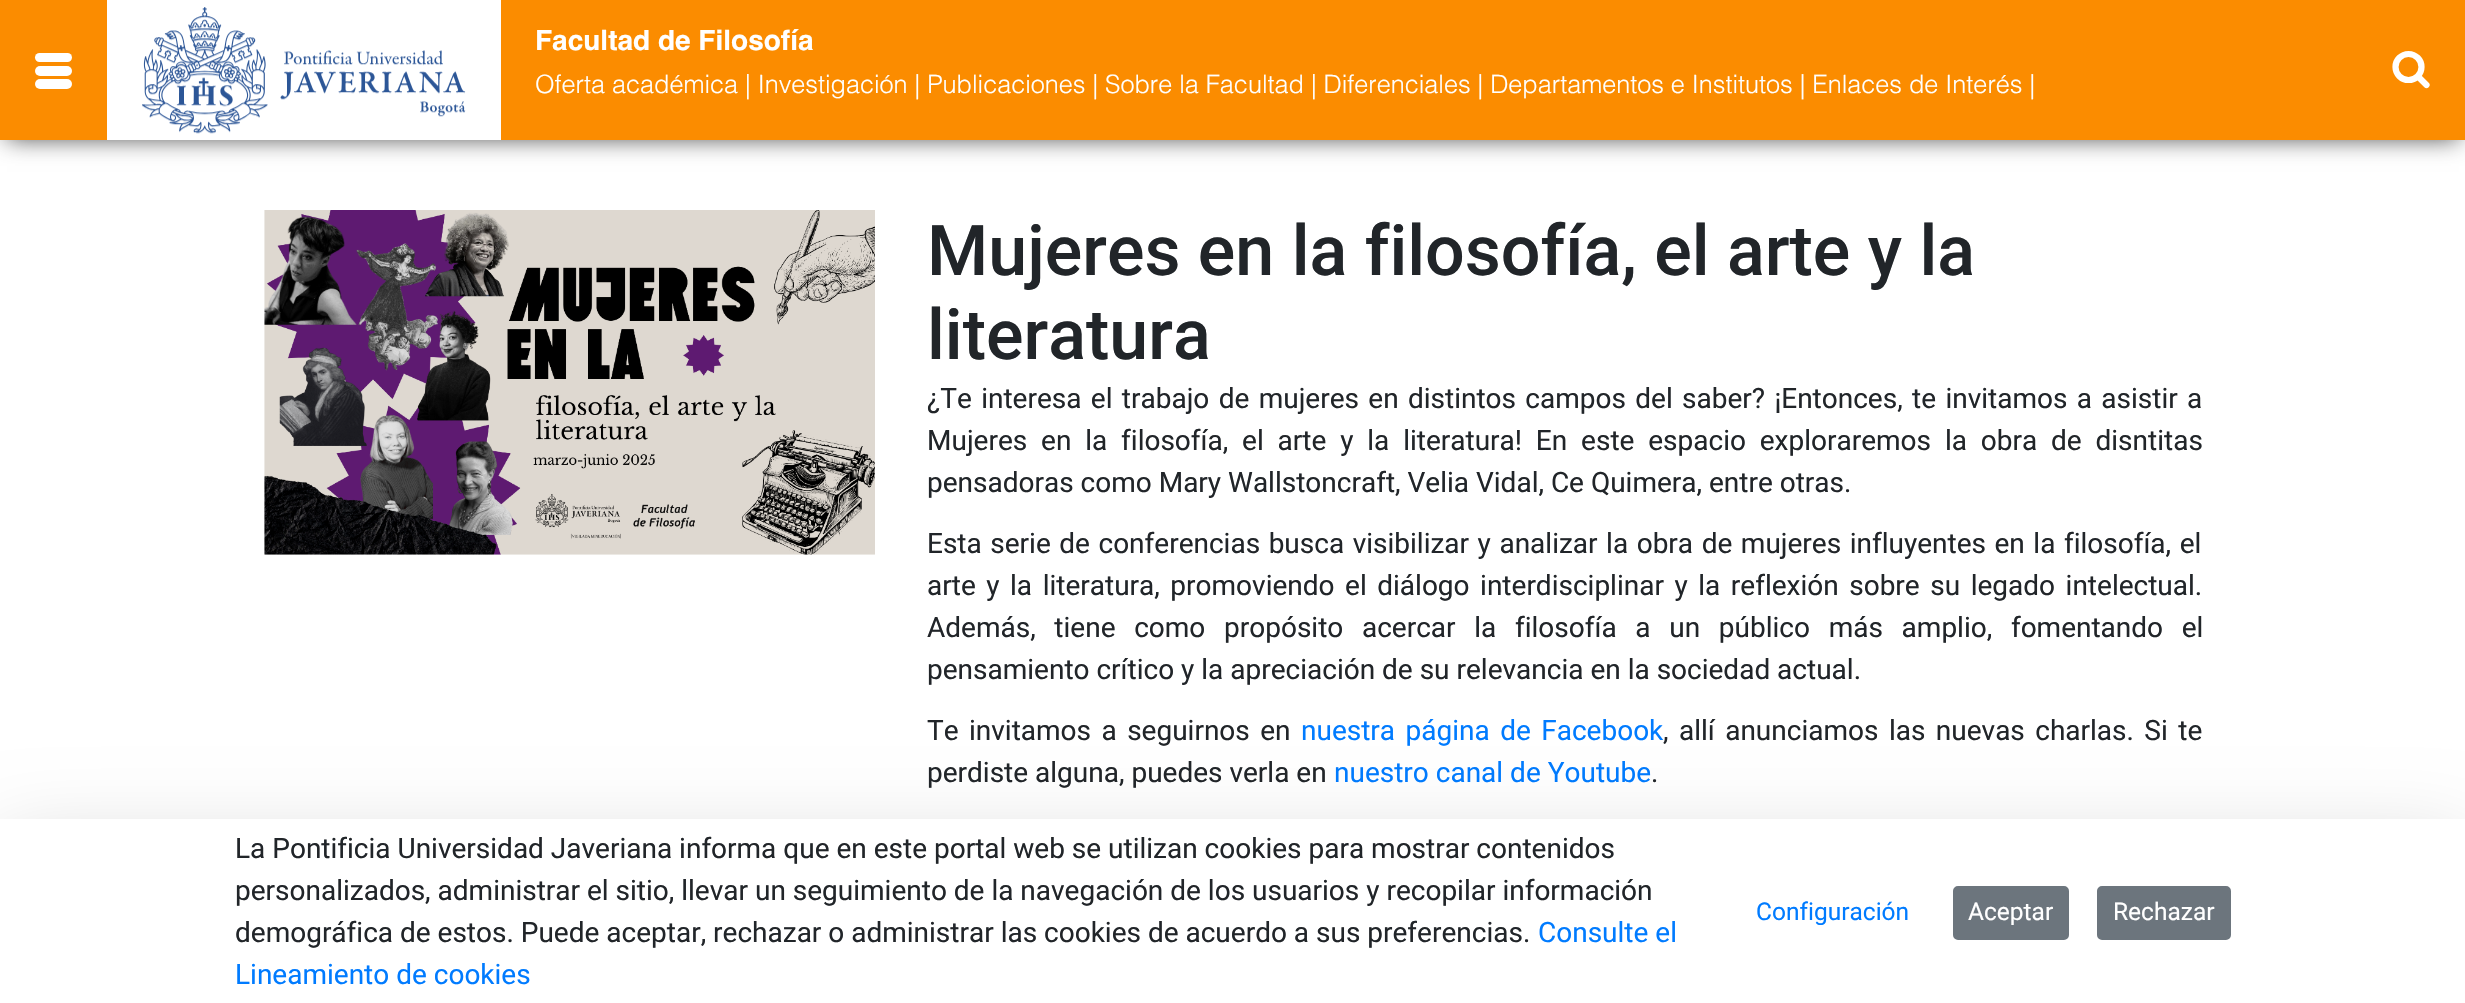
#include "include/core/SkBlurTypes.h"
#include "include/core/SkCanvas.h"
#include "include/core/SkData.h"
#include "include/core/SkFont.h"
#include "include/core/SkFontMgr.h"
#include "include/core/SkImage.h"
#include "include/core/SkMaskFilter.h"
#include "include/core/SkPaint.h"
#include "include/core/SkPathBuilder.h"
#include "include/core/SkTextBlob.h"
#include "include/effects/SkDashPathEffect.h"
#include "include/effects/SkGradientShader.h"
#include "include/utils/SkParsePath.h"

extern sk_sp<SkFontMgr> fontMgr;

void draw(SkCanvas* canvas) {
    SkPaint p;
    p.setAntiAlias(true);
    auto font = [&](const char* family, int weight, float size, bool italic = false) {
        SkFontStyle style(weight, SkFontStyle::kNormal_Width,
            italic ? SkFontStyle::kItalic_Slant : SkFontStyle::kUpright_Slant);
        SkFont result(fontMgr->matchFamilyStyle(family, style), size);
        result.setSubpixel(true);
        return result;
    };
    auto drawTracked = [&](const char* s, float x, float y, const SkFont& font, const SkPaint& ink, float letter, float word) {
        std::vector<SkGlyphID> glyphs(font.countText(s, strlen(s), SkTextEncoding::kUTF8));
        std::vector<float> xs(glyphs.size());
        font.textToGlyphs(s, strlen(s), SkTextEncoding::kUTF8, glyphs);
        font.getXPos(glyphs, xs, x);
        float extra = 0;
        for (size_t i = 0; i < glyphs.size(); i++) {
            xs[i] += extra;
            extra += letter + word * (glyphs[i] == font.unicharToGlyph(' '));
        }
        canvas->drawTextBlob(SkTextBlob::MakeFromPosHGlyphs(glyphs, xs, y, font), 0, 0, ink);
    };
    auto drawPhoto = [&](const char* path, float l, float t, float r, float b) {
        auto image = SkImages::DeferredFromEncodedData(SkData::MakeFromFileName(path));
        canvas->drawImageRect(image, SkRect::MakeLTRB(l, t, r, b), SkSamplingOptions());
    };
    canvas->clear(0xFFFFFFFF);
    p.setColor(0xBF000000);
    p.setMaskFilter(SkMaskFilter::MakeBlur(kNormal_SkBlurStyle, 11.5f));
    canvas->drawRect(SkRect::MakeLTRB(7, 12, 2459, 138), p);
    p.setMaskFilter(nullptr);
    p.setColor(0xFFFB8C00);
    canvas->drawRect(SkRect::MakeLTRB(0, 0, 2465, 140), p);
    p.setColor(0xFFFFFFFF);
    canvas->drawRoundRect(SkRect::MakeLTRB(35, 53, 72, 62), 4.5f, 4.5f, p);
    canvas->drawRoundRect(SkRect::MakeLTRB(35, 66, 72, 76), 5, 5, p);
    canvas->drawRoundRect(SkRect::MakeLTRB(35, 79, 72, 89), 5, 5, p);
    canvas->drawRect(SkRect::MakeLTRB(107, 0, 501, 140), p);
    drawPhoto("media/1.png", 142, 7, 466, 134);
    auto font1 = font("Helvetica", 700, 28);
    canvas->drawString("Facultad de Filosofía", 535, 50, font1, p);
    auto font2 = font("Helvetica", 300, 25.2f);
    canvas->drawString("Oferta académica | Investigación | Publicaciones | Sobre la Facultad | Diferenciales | Departamentos e Institutos | Enlaces de Interés |", 535, 93, font2, p);
    p.setStyle(SkPaint::kStroke_Style);
    p.setStrokeWidth(6.2f);
    canvas->drawCircle(2408.5f, 67, 13, p);
    p.setStrokeCap(SkPaint::kRound_Cap);
    p.setStrokeJoin(SkPaint::kRound_Join);
    canvas->drawPath(SkPathBuilder().moveTo(2426.5f, 85).lineTo(2419, 77.5f).detach(), p);
    drawPhoto("media/2.png", 264, 210, 875, 555);
    auto font3 = font("Roboto", 500, 70);
    p.setStyle(SkPaint::kFill_Style);
    p.setColor(0xFF212529);
    canvas->drawString("Mujeres en la filosofía, el arte y la", 927, 275, font3, p);
    canvas->drawString("literatura", 927, 359, font3, p);
    auto font4 = font("Roboto", 400, 28);
    drawTracked("¿Te interesa el trabajo de mujeres en distintos campos del saber? ¡Entonces, te invitamos a asistir a", 927, 408, font4, p, 0, 2.4f);
    drawTracked("Mujeres en la filosofía, el arte y la literatura! En este espacio exploraremos la obra de disntitas", 927, 450, font4, p, 0, 6.9f);
    canvas->drawString("pensadoras como Mary Wallstoncraft, Velia Vidal, Ce Quimera, entre otras.", 927, 492, font4, p);
    drawTracked("Esta serie de conferencias busca visibilizar y analizar la obra de mujeres influyentes en la filosofía, el", 927, 553, font4, p, 0, 1.6f);
    drawTracked("arte y la literatura, promoviendo el diálogo interdisciplinar y la reflexión sobre su legado intelectual.", 927, 595, font4, p, 0, 3.6f);
    drawTracked("Además, tiene como propósito acercar la filosofía a un público más amplio, fomentando el", 927, 637, font4, p, 0, 11.75f);
    canvas->drawString("pensamiento crítico y la apreciación de su relevancia en la sociedad actual.", 927, 679, font4, p);
    drawTracked("Te invitamos a seguirnos en", 927, 740, font4, p, 0, 3.5f);
    p.setColor(0xFF007BFF);
    drawTracked("nuestra página de Facebook", 1301, 740, font4, p, 0, 3.5f);
    p.setColor(0xFF212529);
    drawTracked(", allí anunciamos las nuevas charlas. Si te", 1663, 740, font4, p, 0, 3.5f);
    canvas->drawString("perdiste alguna, puedes verla en", 927, 782, font4, p);
    p.setColor(0xFF007BFF);
    canvas->drawString("nuestro canal de Youtube", 1334, 782, font4, p);
    p.setColor(0xFF212529);
    canvas->drawString(".", 1651, 782, font4, p);
    p.setColor(0x2E000000);
    p.setMaskFilter(SkMaskFilter::MakeBlur(kNormal_SkBlurStyle, 42));
    canvas->drawRect(SkRect::MakeLTRB(0, 847, 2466, 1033), p);
    p.setMaskFilter(nullptr);
    p.setColor(0xFFFFFFFF);
    canvas->drawRect(SkRect::MakeLTRB(0, 819, 2465, 1003), p);
    p.setColor(0xFF212529);
    {
        const struct { const char* s; float x, y; } items[] = {
            {"La Pontificia Universidad Javeriana informa que en este portal web se utilizan cookies para mostrar contenidos", 235, 858},
            {"personalizados, administrar el sitio, llevar un seguimiento de la navegación de los usuarios y recopilar información", 235, 900},
            {"demográfica de estos. Puede aceptar, rechazar o administrar las cookies de acuerdo a sus preferencias.", 235, 942},
        };
        for (auto [s, x, y] : items) {
            canvas->drawString(s, x, y, font4, p);
        }
    }
    p.setColor(0xFF007BFF);
    canvas->drawString("Consulte el", 1538, 942, font4, p);
    canvas->drawString("Lineamiento de cookies", 235, 984, font4, p);
    auto font5 = font("Roboto", 400, 24.5f);
    canvas->drawString("Configuración", 1756, 920, font5, p);
    p.setColor(0xFF6C757D);
    canvas->drawRoundRect(SkRect::MakeLTRB(1954, 887, 2068, 939), 4, 4, p);
    p.setStyle(SkPaint::kStroke_Style);
    p.setStrokeWidth(2);
    p.setStrokeCap(SkPaint::kButt_Cap);
    p.setStrokeJoin(SkPaint::kMiter_Join);
    canvas->drawRoundRect(SkRect::MakeLTRB(1954, 887, 2068, 939), 4, 4, p);
    p.setStyle(SkPaint::kFill_Style);
    p.setColor(0xFFFFFFFF);
    canvas->drawString("Aceptar", 1968, 920, font5, p);
    p.setColor(0xFF6C757D);
    canvas->drawRoundRect(SkRect::MakeLTRB(2098, 887, 2230, 939), 4, 4, p);
    p.setStyle(SkPaint::kStroke_Style);
    canvas->drawRoundRect(SkRect::MakeLTRB(2098, 887, 2230, 939), 4, 4, p);
    p.setStyle(SkPaint::kFill_Style);
    p.setColor(0xFFFFFFFF);
    canvas->drawString("Rechazar", 2113, 920, font5, p);
}
